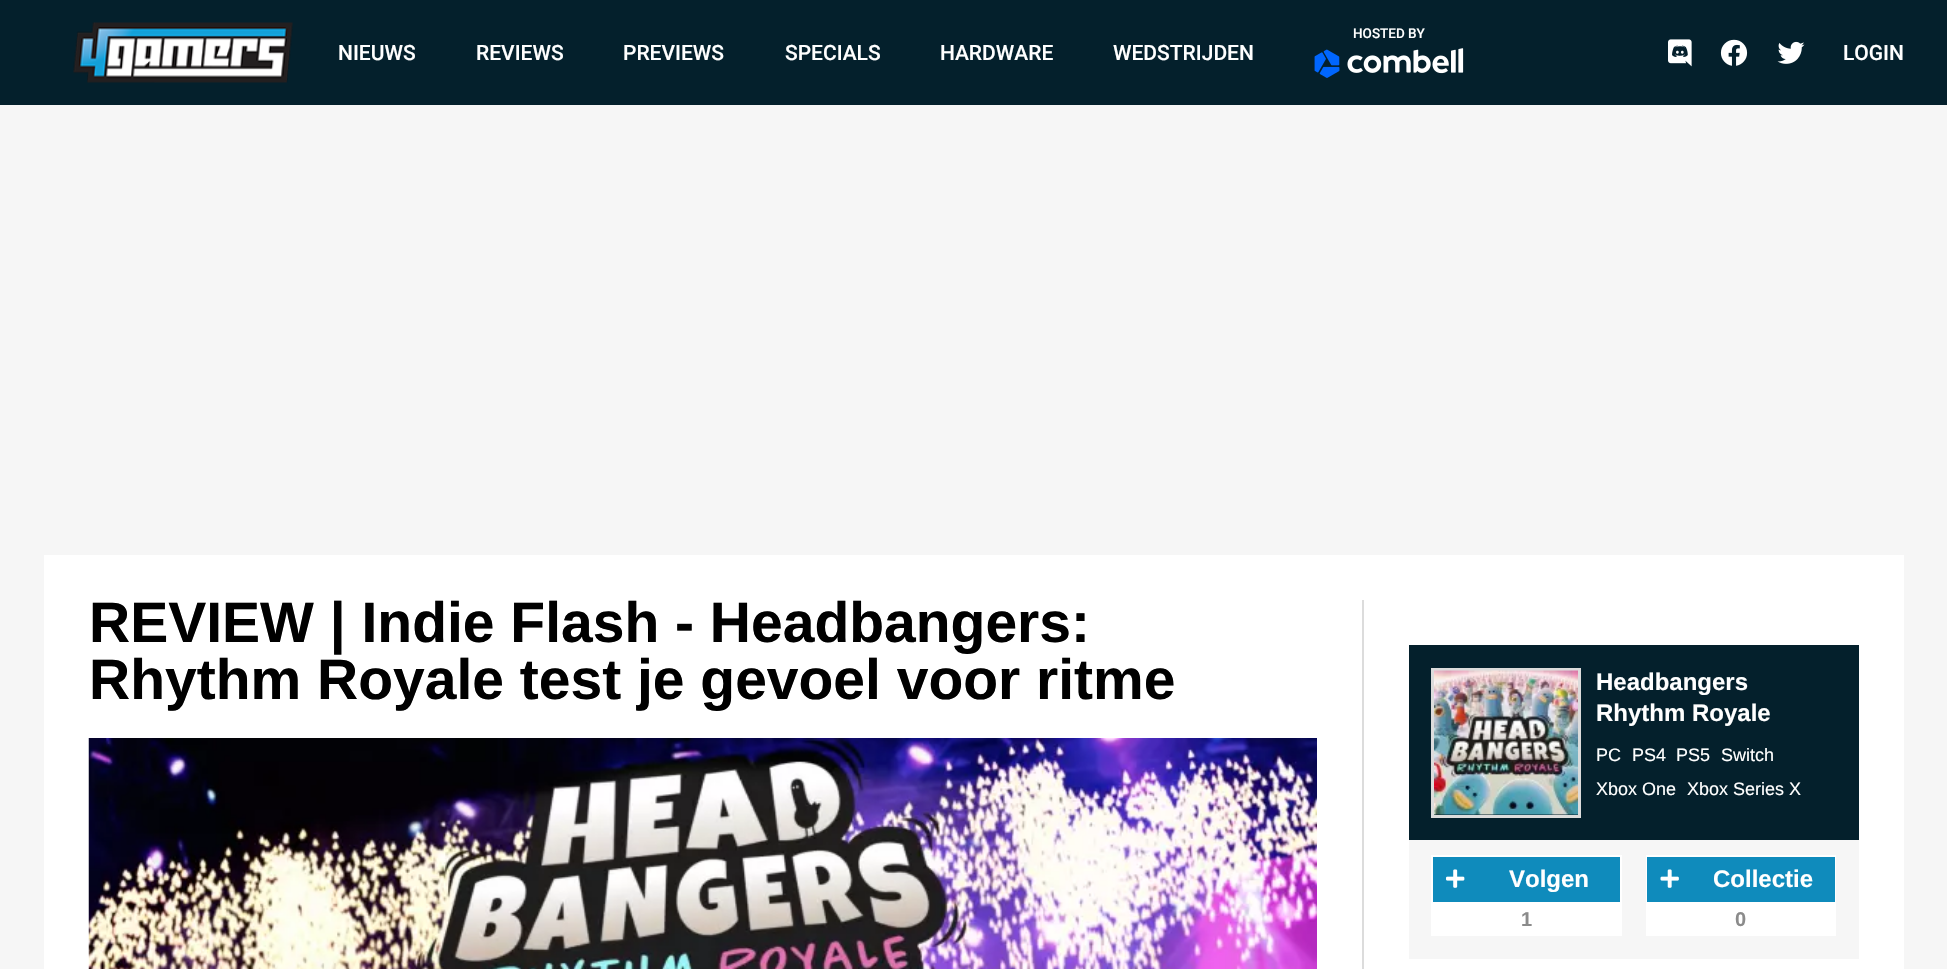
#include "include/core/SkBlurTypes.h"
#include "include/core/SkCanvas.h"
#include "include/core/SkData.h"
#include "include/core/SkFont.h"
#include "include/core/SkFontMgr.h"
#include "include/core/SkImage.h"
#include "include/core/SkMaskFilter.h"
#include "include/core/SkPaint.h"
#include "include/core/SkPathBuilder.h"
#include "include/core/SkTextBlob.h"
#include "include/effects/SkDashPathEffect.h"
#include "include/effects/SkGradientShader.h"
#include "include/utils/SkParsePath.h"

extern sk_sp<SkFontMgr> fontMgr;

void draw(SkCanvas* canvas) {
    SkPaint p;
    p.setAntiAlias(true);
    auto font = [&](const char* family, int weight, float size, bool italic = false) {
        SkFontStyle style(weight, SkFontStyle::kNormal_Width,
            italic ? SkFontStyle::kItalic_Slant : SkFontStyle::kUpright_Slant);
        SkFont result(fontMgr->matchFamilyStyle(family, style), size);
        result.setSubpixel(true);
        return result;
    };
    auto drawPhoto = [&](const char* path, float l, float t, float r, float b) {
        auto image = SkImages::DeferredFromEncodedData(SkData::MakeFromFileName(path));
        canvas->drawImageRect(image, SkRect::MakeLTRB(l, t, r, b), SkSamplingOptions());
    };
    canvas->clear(0xFFF6F6F6);
    p.setColor(0xFF04202C);
    canvas->drawRect(SkRect::MakeLTRB(0, 0, 1947, 105), p);
    drawPhoto("media/1.png", 73, 22, 293, 83);
    auto font1 = font("Roboto", 500, 13.5f);
    p.setColor(0xFFFFFFFF);
    canvas->drawString("HOSTED BY", 1353, 38, font1, p);
    drawPhoto("media/2.png", 1314, 48, 1464, 78);
    auto font2 = font("Roboto", 500, 21);
    {
        const struct { const char* s; float x, y; } items[] = {
            {"NIEUWS", 338, 60},
            {"REVIEWS", 476, 60},
            {"PREVIEWS", 623, 60},
            {"SPECIALS", 785, 60},
            {"HARDWARE", 940, 60},
            {"WEDSTRIJDEN", 1113, 60},
        };
        for (auto [s, x, y] : items) {
            canvas->drawString(s, x, y, font2, p);
        }
    }
    drawPhoto("media/3.png", 1668, 39, 1692, 67);
    drawPhoto("media/4.png", 1720, 39, 1748, 66);
    drawPhoto("media/5.png", 1777, 41, 1805, 64);
    canvas->drawString("LOGIN", 1843, 60, font2, p);
    canvas->drawRect(SkRect::MakeLTRB(44, 555, 1904, 969), p);
    auto font3 = font("Arimo", 700, 57);
    p.setColor(0xFF000000);
    canvas->drawString("REVIEW | Indie Flash - Headbangers:", 89, 642, font3, p);
    canvas->drawString("Rhythm Royale test je gevoel voor ritme", 89, 699, font3, p);
    drawPhoto("media/6.png", 88, 738, 1317, 969);
    p.setColor(0xFFDCDCDC);
    canvas->drawRect(SkRect::MakeLTRB(1362, 600, 1364, 969), p);
    p.setColor(0xFF04202C);
    canvas->drawRect(SkRect::MakeLTRB(1409, 645, 1859, 840), p);
    p.setStyle(SkPaint::kStroke_Style);
    p.setStrokeWidth(3);
    p.setColor(0xFFDCDCDC);
    canvas->drawRect(SkRect::MakeLTRB(1432.5f, 669.5f, 1579.5f, 816.5f), p);
    drawPhoto("media/7.png", 1434, 670, 1578, 815);
    auto font4 = font("Arimo", 700, 24);
    p.setStyle(SkPaint::kFill_Style);
    p.setColor(0xFFFFFFFF);
    canvas->drawString("Headbangers", 1596, 690, font4, p);
    canvas->drawString("Rhythm Royale", 1596, 721, font4, p);
    auto font5 = font("Arimo", 400, 18);
    {
        const struct { const char* s; float x, y; } items[] = {
            {"PC", 1596, 761},
            {"PS4", 1632, 761},
            {"PS5", 1676, 761},
            {"Switch", 1721, 761},
            {"Xbox One", 1596, 795},
            {"Xbox Series X", 1687, 795},
        };
        for (auto [s, x, y] : items) {
            canvas->drawString(s, x, y, font5, p);
        }
    }
    {
        const struct { float l, t, r, b; SkColor color; } items[] = {
            {1409, 840, 1859, 959, 0xFFF6F6F6},
            {1431, 855, 1622, 936, 0xFFFFFFFF},
            {1433, 857, 1620, 902, 0xFF0F8BBC},
        };
        for (auto [l, t, r, b, color] : items) {
            p.setColor(color);
            canvas->drawRect(SkRect::MakeLTRB(l, t, r, b), p);
        }
    }
    drawPhoto("media/8.png", 1446, 869, 1465, 888);
    p.setColor(0xFFFFFFFF);
    canvas->drawString("Volgen", 1509, 887, font4, p);
    auto font6 = font("Arimo", 700, 20);
    p.setColor(0xFF8B8B8B);
    canvas->drawString("1", 1521, 926, font6, p);
    p.setColor(0xFFFFFFFF);
    canvas->drawRect(SkRect::MakeLTRB(1646, 855, 1836, 936), p);
    p.setColor(0xFF0F8BBC);
    canvas->drawRect(SkRect::MakeLTRB(1647, 857, 1835, 902), p);
    drawPhoto("media/9.png", 1660, 869, 1679, 888);
    p.setColor(0xFFFFFFFF);
    canvas->drawString("Collectie", 1713, 887, font4, p);
    p.setColor(0xFF8B8B8B);
    canvas->drawString("0", 1735, 926, font6, p);
}
